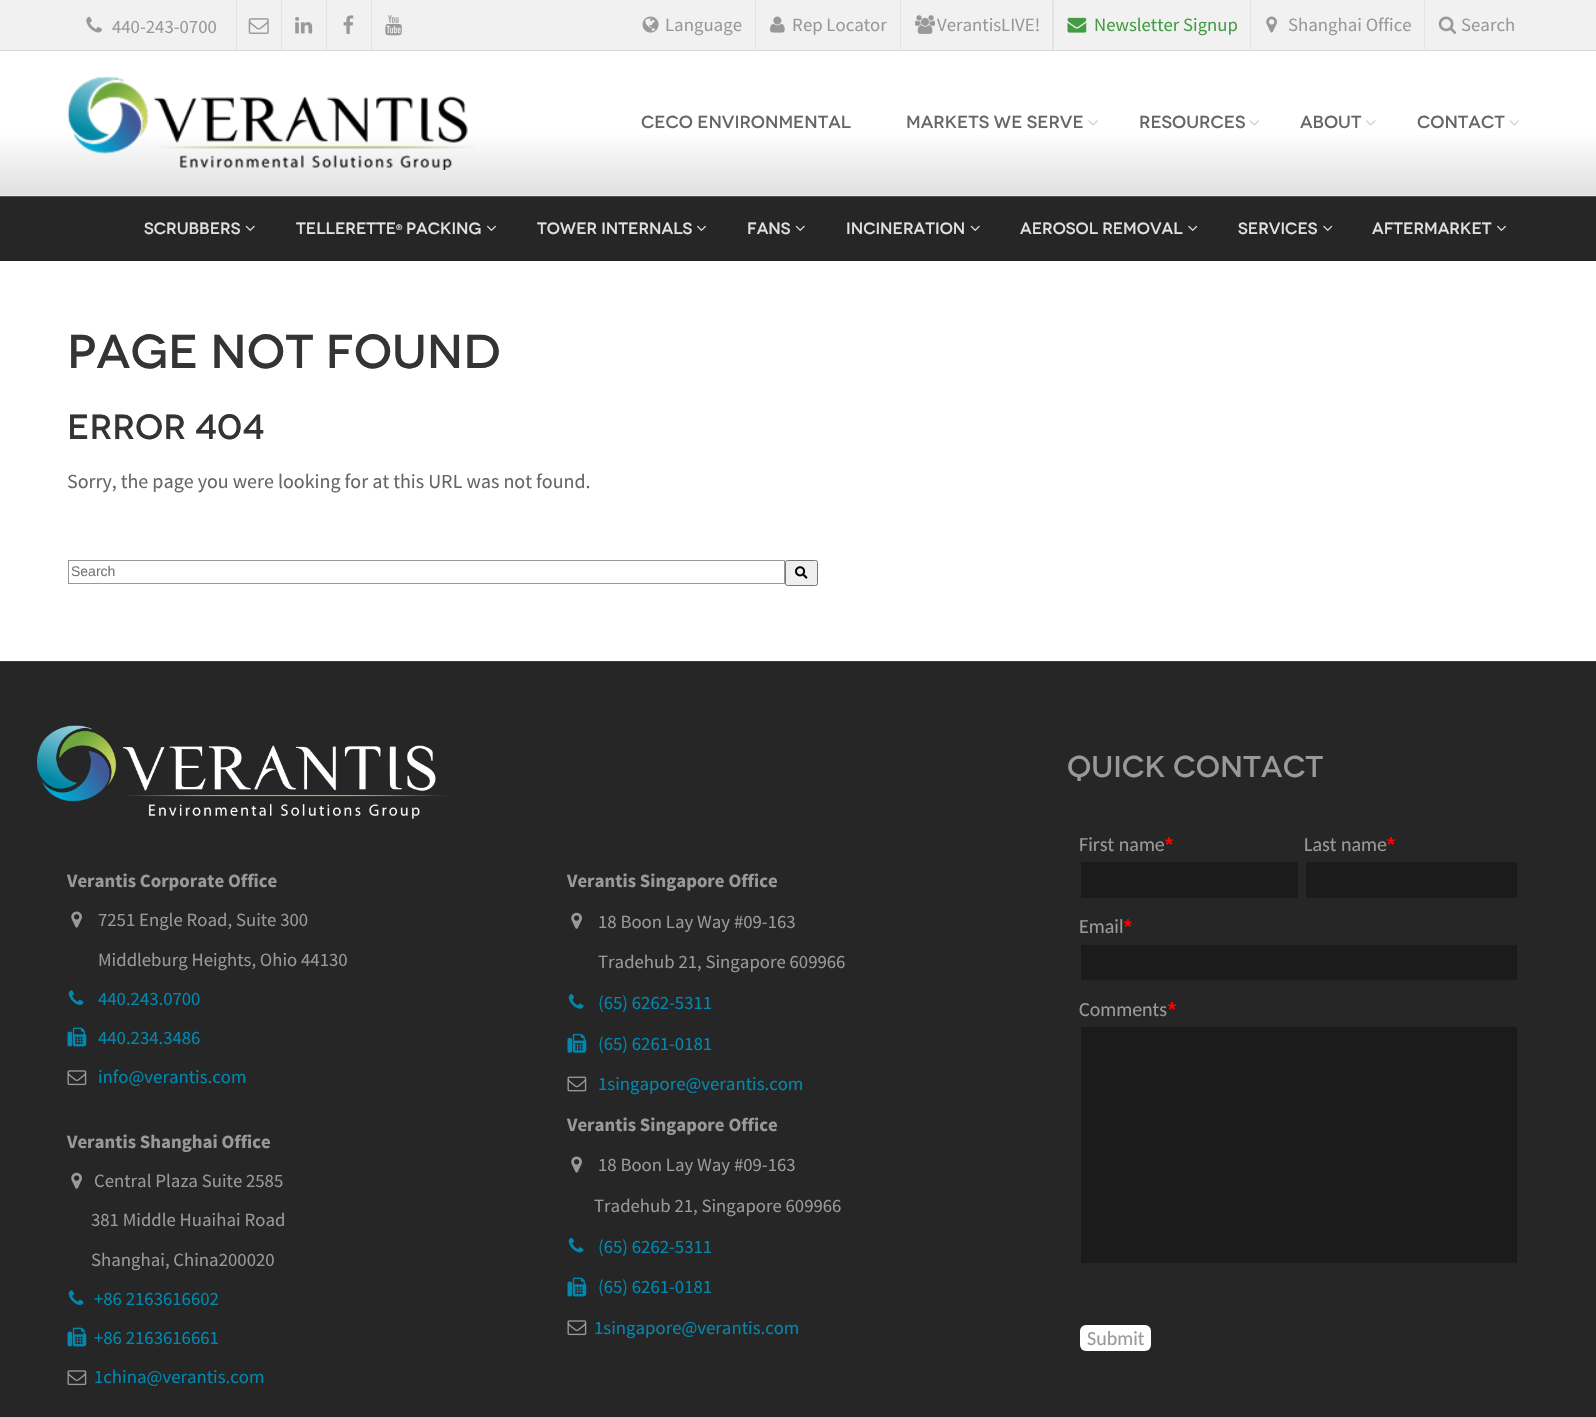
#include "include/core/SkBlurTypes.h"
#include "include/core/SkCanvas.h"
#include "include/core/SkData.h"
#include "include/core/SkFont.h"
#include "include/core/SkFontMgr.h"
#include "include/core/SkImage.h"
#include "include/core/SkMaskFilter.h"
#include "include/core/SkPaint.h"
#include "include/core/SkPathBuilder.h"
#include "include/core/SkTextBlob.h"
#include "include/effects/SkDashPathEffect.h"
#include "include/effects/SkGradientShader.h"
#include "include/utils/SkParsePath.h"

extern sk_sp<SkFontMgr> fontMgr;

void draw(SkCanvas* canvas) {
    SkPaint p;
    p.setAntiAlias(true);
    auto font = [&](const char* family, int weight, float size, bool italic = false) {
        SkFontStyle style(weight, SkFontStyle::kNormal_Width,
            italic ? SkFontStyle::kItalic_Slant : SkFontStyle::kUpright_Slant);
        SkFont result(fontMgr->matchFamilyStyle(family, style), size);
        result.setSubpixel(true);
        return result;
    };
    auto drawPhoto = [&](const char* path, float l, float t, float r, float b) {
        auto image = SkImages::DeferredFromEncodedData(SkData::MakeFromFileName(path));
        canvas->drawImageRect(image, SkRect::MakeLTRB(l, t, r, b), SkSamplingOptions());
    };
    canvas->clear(0xFFFFFFFF);
    {
        const struct { float l, t, r, b; SkColor color; } items[] = {
            {0, 0, 1596, 50, 0xFFF1F1F1},
            {0, 50, 1596, 51, 0xFFDADADA},
            {236, 0, 237, 50, 0xFFE3E3E3},
        };
        for (auto [l, t, r, b, color] : items) {
            p.setColor(color);
            canvas->drawRect(SkRect::MakeLTRB(l, t, r, b), p);
        }
    }
    drawPhoto("media/1.png", 86, 16, 102, 33);
    auto font1 = font("Source Sans Pro", 400, 18.75f);
    p.setColor(0xFF999999);
    canvas->drawString("440-243-0700", 112, 33, font1, p);
    p.setColor(0xFFE3E3E3);
    canvas->drawRect(SkRect::MakeLTRB(281, 0, 282, 50), p);
    drawPhoto("media/2.png", 248, 18, 269, 34);
    canvas->drawRect(SkRect::MakeLTRB(326, 0, 327, 50), p);
    drawPhoto("media/3.png", 295, 17, 313, 34);
    canvas->drawRect(SkRect::MakeLTRB(371, 0, 372, 50), p);
    drawPhoto("media/4.png", 343, 15, 354, 34);
    drawPhoto("media/5.png", 385, 15, 402, 36);
    canvas->drawPath(SkPathBuilder().moveTo(756, 0).lineTo(756, 50).lineTo(755, 49).lineTo(755, 1).close().detach(), p);
    drawPhoto("media/6.png", 642, 16, 659, 33);
    p.setColor(0xFF999999);
    canvas->drawString("Language", 665, 31, font1, p);
    p.setColor(0xFFE3E3E3);
    canvas->drawPath(SkPathBuilder().moveTo(901, 0).lineTo(901, 50).lineTo(900, 49).lineTo(900, 1).close().detach(), p);
    drawPhoto("media/7.png", 770, 16, 785, 33);
    p.setColor(0xFF999999);
    canvas->drawString("Rep Locator", 792, 31, font1, p);
    p.setColor(0xFFE3E3E3);
    canvas->drawPath(SkPathBuilder().moveTo(1054, 0).lineTo(1054, 50).lineTo(1052, 49).lineTo(1052, 1).close().detach(), p);
    drawPhoto("media/8.png", 915, 15, 936, 34);
    p.setColor(0xFF999999);
    canvas->drawString("VerantisLIVE!", 937, 31, font1, p);
    p.setColor(0xFFE3E3E3);
    canvas->drawPath(SkPathBuilder().moveTo(1251, 0).lineTo(1251, 50).lineTo(1250, 49).lineTo(1250, 1).close().detach(), p);
    drawPhoto("media/9.png", 1067, 17, 1087, 33);
    p.setColor(0xFF449D44);
    canvas->drawString("Newsletter Signup", 1094, 31, font1, p);
    p.setColor(0xFFE3E3E3);
    canvas->drawPath(SkPathBuilder().moveTo(1425, 0).lineTo(1425, 50).lineTo(1424, 49).lineTo(1424, 1).close().detach(), p);
    drawPhoto("media/10.png", 1266, 16, 1277, 33);
    p.setColor(0xFF999999);
    canvas->drawString("Shanghai Office", 1288, 31, font1, p);
    drawPhoto("media/11.png", 1438, 16, 1457, 34);
    canvas->drawString("Search", 1461, 31, font1, p);
    {
        const SkColor colors[] = {0xFFFFFFFF, 0xFFE0E0E0};
        const float stops[] = {0.55f, 1};
        const SkPoint ends[] = {{798, 51}, {798, 195}};
        p.setShader(SkGradientShader::MakeLinear(ends, colors, stops, 2, SkTileMode::kClamp));
        p.setAlpha(255);
    }
    canvas->drawRect(SkRect::MakeLTRB(0, 135, 1596, 195), p);
    p.setShader(nullptr);
    p.setColor(0xFFEAEAEA);
    canvas->drawRect(SkRect::MakeLTRB(0, 195, 1596, 196), p);
    drawPhoto("media/12.png", 67, 76, 476, 170);
    auto font2 = font("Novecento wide", 500, 17.5f);
    p.setColor(0xFF666666);
    canvas->drawString("CECO ENVIRONMENTAL", 641, 128, font2, p);
    canvas->drawString("MARKETS WE SERVE", 906, 128, font2, p);
    drawPhoto("media/13.png", 1088, 120, 1098, 126);
    canvas->drawString("RESOURCES", 1139, 128, font2, p);
    drawPhoto("media/14.png", 1249, 120, 1259, 126);
    canvas->drawString("ABOUT", 1300, 128, font2, p);
    drawPhoto("media/15.png", 1366, 120, 1376, 126);
    canvas->drawString("CONTACT", 1417, 128, font2, p);
    drawPhoto("media/14.png", 1509, 120, 1519, 126);
    p.setColor(0xFF262626);
    canvas->drawRect(SkRect::MakeLTRB(0, 197, 1596, 261), p);
    p.setColor(0xFF515151);
    canvas->drawRect(SkRect::MakeLTRB(0, 196, 1596, 197), p);
    auto font3 = font("Novecento wide", 500, 16.25f);
    p.setColor(0xFFE1E1E1);
    canvas->drawString("SCRUBBERS", 144, 234, font3, p);
    drawPhoto("media/16.png", 245, 225, 255, 231);
    canvas->drawString("TELLERETTE", 296, 234, font3, p);
    auto font4 = font("Novecento wide", 500, 8);
    canvas->drawString("®", 396, 230, font4, p);
    canvas->drawString("PACKING", 406, 234, font3, p);
    drawPhoto("media/17.png", 487, 225, 496, 231);
    canvas->drawString("TOWER INTERNALS", 537, 234, font3, p);
    drawPhoto("media/17.png", 697, 225, 706, 231);
    canvas->drawString("FANS", 747, 234, font3, p);
    drawPhoto("media/16.png", 795, 225, 805, 231);
    canvas->drawString("INCINERATION", 846, 234, font3, p);
    drawPhoto("media/16.png", 970, 225, 980, 231);
    canvas->drawString("AEROSOL REMOVAL", 1020, 234, font3, p);
    drawPhoto("media/18.png", 1188, 225, 1198, 231);
    canvas->drawString("SERVICES", 1238, 234, font3, p);
    drawPhoto("media/18.png", 1323, 225, 1333, 231);
    canvas->drawString("AFTERMARKET", 1372, 234, font3, p);
    drawPhoto("media/17.png", 1497, 225, 1506, 231);
    auto font5 = font("Novecento wide", 500, 47.5f);
    p.setColor(0xFF343434);
    canvas->drawString("PAGE NOT FOUND", 67, 368, font5, p);
    auto font6 = font("Novecento wide", 500, 35);
    canvas->drawString("ERROR 404", 67, 439, font6, p);
    auto font7 = font("Source Sans Pro", 400, 20);
    p.setColor(0xFF666666);
    canvas->drawString("Sorry, the page you were looking for at this URL was not found.", 67, 488, font7, p);
    p.setStyle(SkPaint::kStroke_Style);
    p.setStrokeWidth(1);
    p.setColor(0xFF999999);
    canvas->drawRect(SkRect::MakeLTRB(68.5f, 560.5f, 784.5f, 583.5f), p);
    auto font8 = font("Liberation Sans", 400, 14);
    p.setStyle(SkPaint::kFill_Style);
    p.setColor(0xFF757575);
    canvas->drawString("Search", 71, 576, font8, p);
    p.setColor(0xFFEFEFEF);
    canvas->drawRoundRect(SkRect::MakeLTRB(785.5f, 560.5f, 817.5f, 585.5f), 2, 2, p);
    p.setStyle(SkPaint::kStroke_Style);
    p.setColor(0xFF767676);
    canvas->drawRoundRect(SkRect::MakeLTRB(785.5f, 560.5f, 817.5f, 585.5f), 2, 2, p);
    drawPhoto("media/19.png", 795, 566, 808, 579);
    p.setStyle(SkPaint::kFill_Style);
    p.setColor(0xFF262626);
    canvas->drawRect(SkRect::MakeLTRB(0, 662, 1596, 1417), p);
    p.setColor(0xFF3A3A3A);
    canvas->drawRect(SkRect::MakeLTRB(0, 661, 1596, 662), p);
    drawPhoto("media/20.png", 37, 725, 448, 819);
    auto font9 = font("Source Sans Pro", 700, 18.75f);
    p.setColor(0xFF999999);
    canvas->drawString("Verantis Corporate Office", 67, 887, font9, p);
    drawPhoto("media/21.png", 71, 911, 82, 928);
    canvas->drawString("7251 Engle Road, Suite 300", 98, 926, font1, p);
    canvas->drawString("Middleburg Heights, Ohio 44130", 98, 966, font1, p);
    drawPhoto("media/22.png", 68, 990, 84, 1005);
    p.setColor(0xFF0088B0);
    canvas->drawString("440.243.0700", 98, 1005, font1, p);
    drawPhoto("media/23.png", 67, 1027, 87, 1047);
    canvas->drawString("440.234.3486", 98, 1044, font1, p);
    drawPhoto("media/24.png", 67, 1070, 87, 1086);
    canvas->drawString("info@verantis.com", 98, 1083, font1, p);
    p.setColor(0xFF999999);
    canvas->drawString("Verantis Shanghai Office", 67, 1148, font9, p);
    drawPhoto("media/25.png", 71, 1172, 82, 1189);
    {
        const struct { const char* s; float x, y; } items[] = {
            {"Central Plaza Suite 2585", 94, 1187},
            {"381 Middle Huaihai Road", 91, 1226},
            {"Shanghai, China200020", 91, 1266},
        };
        for (auto [s, x, y] : items) {
            canvas->drawString(s, x, y, font1, p);
        }
    }
    drawPhoto("media/22.png", 68, 1290, 84, 1305);
    p.setColor(0xFF0088B0);
    canvas->drawString("+86 2163616602", 94, 1305, font1, p);
    drawPhoto("media/23.png", 67, 1327, 87, 1347);
    canvas->drawString("+86 2163616661", 94, 1344, font1, p);
    drawPhoto("media/24.png", 67, 1370, 87, 1386);
    canvas->drawString("1china@verantis.com", 94, 1383, font1, p);
    p.setColor(0xFF999999);
    canvas->drawString("Verantis Singapore Office", 567, 887, font9, p);
    drawPhoto("media/25.png", 571, 912, 582, 929);
    canvas->drawString("18 Boon Lay Way #09-163", 598, 928, font1, p);
    canvas->drawString("Tradehub 21, Singapore 609966", 598, 968, font1, p);
    drawPhoto("media/26.png", 568, 994, 584, 1009);
    p.setColor(0xFF0088B0);
    canvas->drawString("(65) 6262-5311", 598, 1009, font1, p);
    drawPhoto("media/27.png", 567, 1033, 587, 1053);
    canvas->drawString("(65) 6261-0181", 598, 1050, font1, p);
    drawPhoto("media/28.png", 567, 1076, 587, 1092);
    canvas->drawString("1singapore@verantis.com", 598, 1090, font1, p);
    p.setColor(0xFF999999);
    canvas->drawString("Verantis Singapore Office", 567, 1131, font9, p);
    drawPhoto("media/21.png", 571, 1156, 582, 1173);
    canvas->drawString("18 Boon Lay Way #09-163", 598, 1171, font1, p);
    canvas->drawString("Tradehub 21, Singapore 609966", 594, 1212, font1, p);
    drawPhoto("media/29.png", 568, 1237, 584, 1253);
    p.setColor(0xFF0088B0);
    canvas->drawString("(65) 6262-5311", 598, 1253, font1, p);
    drawPhoto("media/23.png", 567, 1277, 587, 1297);
    canvas->drawString("(65) 6261-0181", 598, 1293, font1, p);
    drawPhoto("media/24.png", 567, 1320, 587, 1336);
    canvas->drawString("1singapore@verantis.com", 594, 1334, font1, p);
    auto font10 = font("Novecento wide", 500, 30);
    p.setColor(0xFF999999);
    canvas->drawString("QUICK CONTACT", 1067, 777, font10, p);
    auto font11 = font("Carlito", 400, 20);
    canvas->drawString("First name", 1079, 851, font11, p);
    auto font12 = font("Liberation Sans", 700, 20);
    p.setColor(0xFFFF0000);
    canvas->drawString("*", 1165, 851, font12, p);
    p.setColor(0xFF1B1B1B);
    canvas->drawRect(SkRect::MakeLTRB(1081, 862, 1298, 898), p);
    p.setColor(0xFF999999);
    canvas->drawString("Last name", 1304, 851, font11, p);
    p.setColor(0xFFFF0000);
    canvas->drawString("*", 1387, 851, font12, p);
    p.setColor(0xFF1B1B1B);
    canvas->drawRect(SkRect::MakeLTRB(1306, 862, 1517, 898), p);
    p.setColor(0xFF999999);
    canvas->drawString("Email", 1079, 933, font11, p);
    p.setColor(0xFFFF0000);
    canvas->drawString("*", 1124, 933, font12, p);
    p.setColor(0xFF1B1B1B);
    canvas->drawRect(SkRect::MakeLTRB(1081, 945, 1517, 980), p);
    p.setColor(0xFF999999);
    canvas->drawString("Comments", 1079, 1016, font11, p);
    p.setColor(0xFFFF0000);
    canvas->drawString("*", 1168, 1016, font12, p);
    p.setColor(0xFF1B1B1B);
    canvas->drawRect(SkRect::MakeLTRB(1081, 1027, 1517, 1263), p);
    p.setColor(0xFFFFFFFF);
    canvas->drawRoundRect(SkRect::MakeLTRB(1080, 1325, 1151, 1351), 6, 6, p);
    p.setColor(0xFF999999);
    canvas->drawString("Submit", 1087, 1345, font11, p);
}
